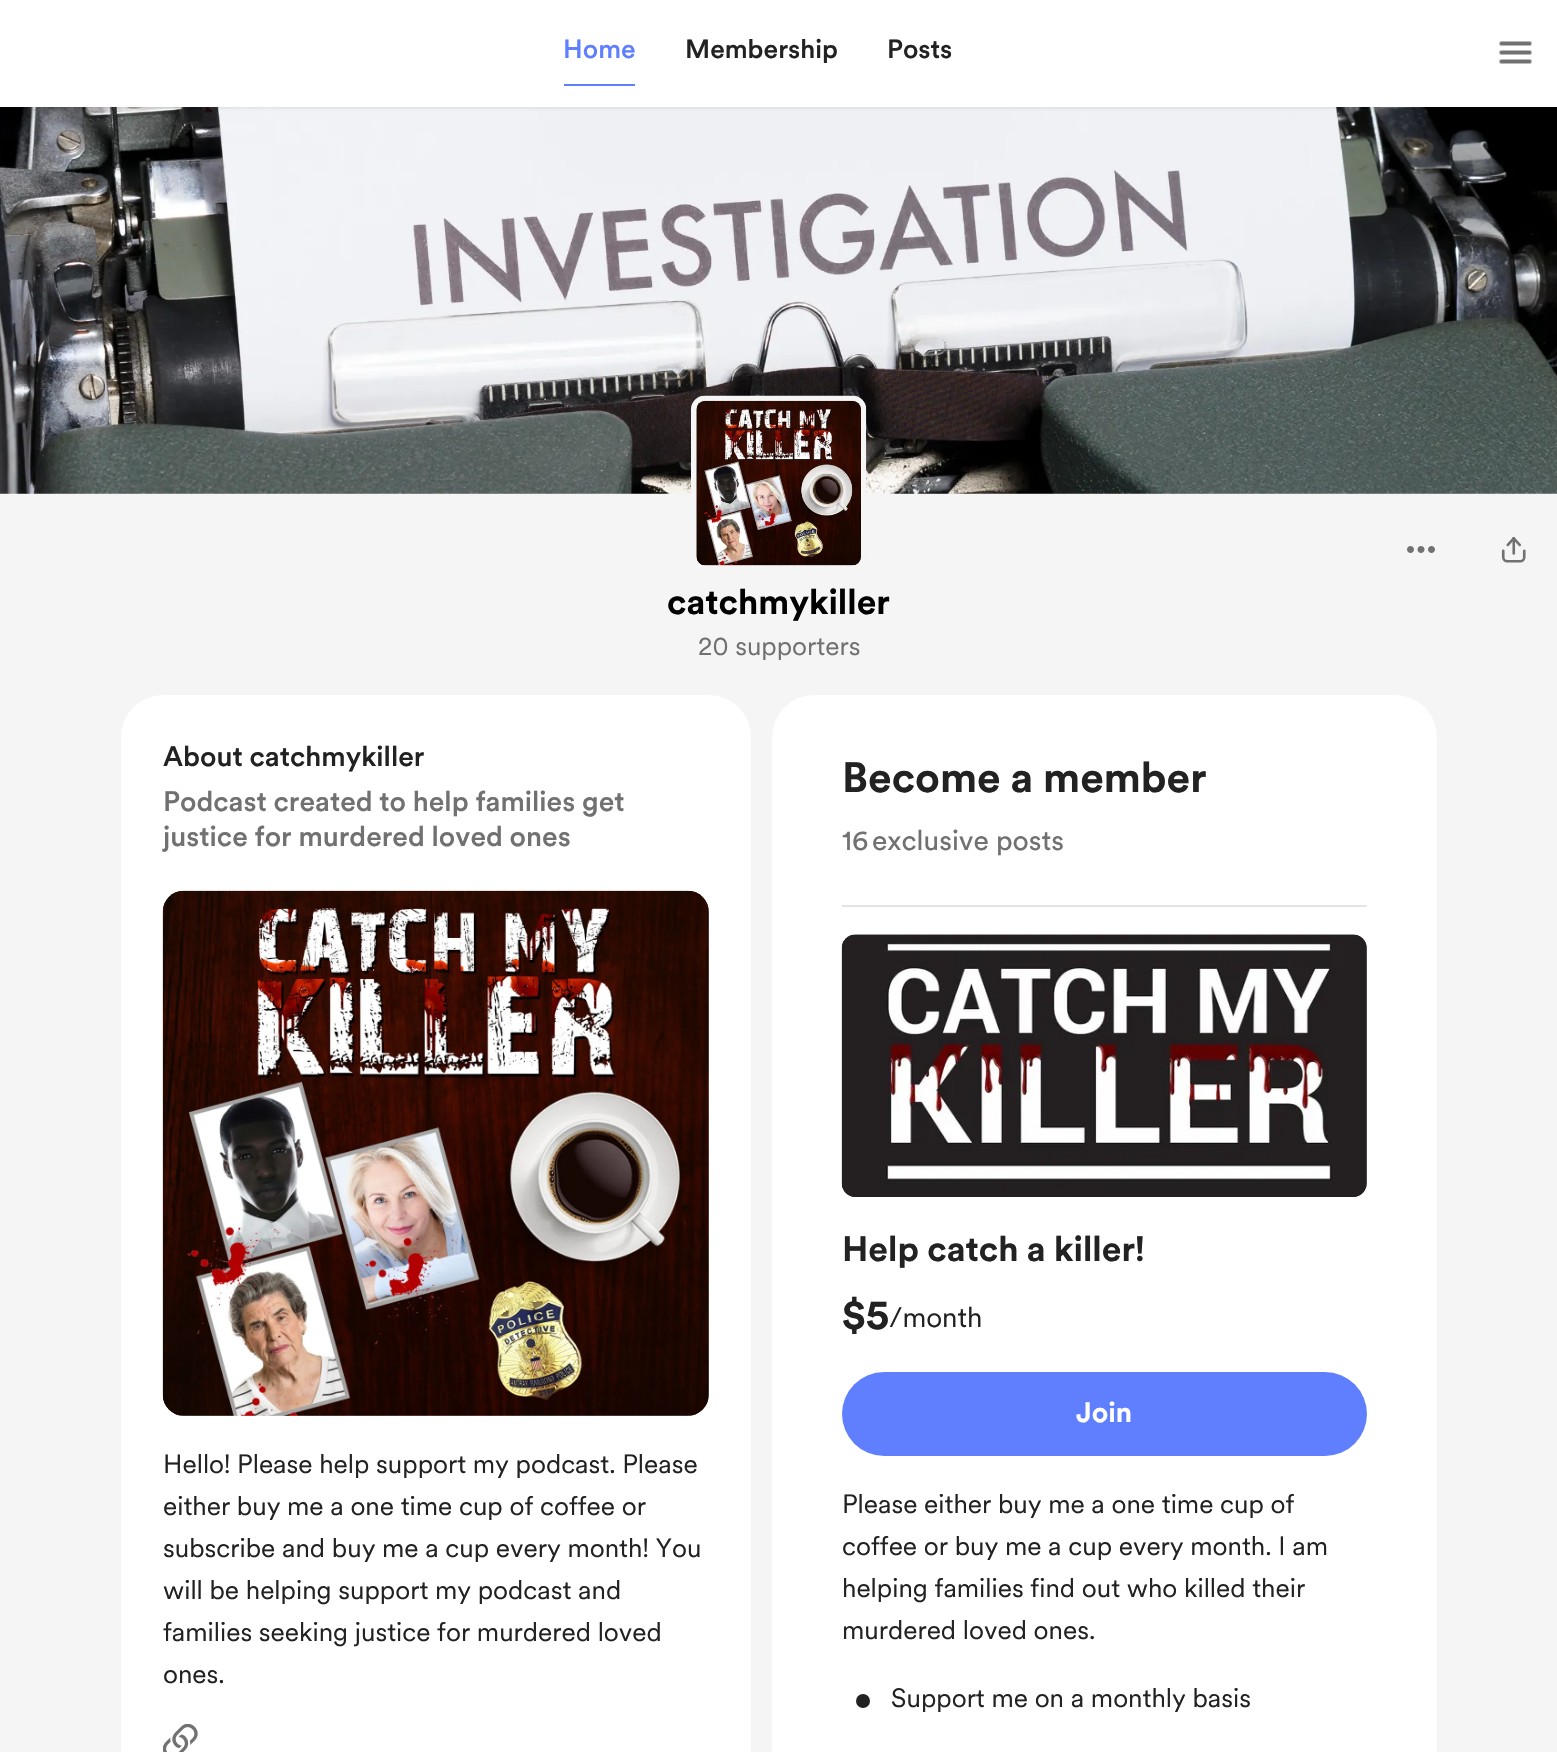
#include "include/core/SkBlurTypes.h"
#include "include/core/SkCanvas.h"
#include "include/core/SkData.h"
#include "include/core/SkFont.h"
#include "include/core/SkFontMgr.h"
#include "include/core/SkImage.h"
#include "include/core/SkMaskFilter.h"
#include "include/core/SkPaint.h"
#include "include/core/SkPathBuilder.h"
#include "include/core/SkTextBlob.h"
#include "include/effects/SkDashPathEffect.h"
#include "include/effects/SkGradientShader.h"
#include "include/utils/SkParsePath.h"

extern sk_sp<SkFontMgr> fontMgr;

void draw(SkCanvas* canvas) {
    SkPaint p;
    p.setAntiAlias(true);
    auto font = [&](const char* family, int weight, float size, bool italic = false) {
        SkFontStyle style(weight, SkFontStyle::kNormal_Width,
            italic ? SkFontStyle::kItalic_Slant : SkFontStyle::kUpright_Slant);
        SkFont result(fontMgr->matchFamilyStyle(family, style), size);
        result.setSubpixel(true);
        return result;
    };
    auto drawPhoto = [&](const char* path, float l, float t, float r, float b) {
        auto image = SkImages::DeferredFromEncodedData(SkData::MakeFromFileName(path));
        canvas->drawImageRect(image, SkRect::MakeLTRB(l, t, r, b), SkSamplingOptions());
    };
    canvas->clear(0xFFF5F5F5);
    drawPhoto("media/2.png", 0, 493, 1557, 494);
    drawPhoto("media/3.png", 0, 107, 1557, 494);
    p.setColor(0x0F000000);
    p.setMaskFilter(SkMaskFilter::MakeBlur(kNormal_SkBlurStyle, 1));
    canvas->drawRect(SkRect::MakeLTRB(0, 2, 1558, 109), p);
    p.setMaskFilter(nullptr);
    p.setColor(0xFFFFFFFF);
    canvas->drawRect(SkRect::MakeLTRB(0, 0, 1557, 107), p);
    auto font1 = font("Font", 500, 26.25f);
    p.setColor(0xFF5F7FFF);
    canvas->drawString("Home", 563, 58, font1, p);
    canvas->drawRect(SkRect::MakeLTRB(564, 84, 635, 86), p);
    p.setColor(0xFF222222);
    canvas->drawString("Membership", 685, 58, font1, p);
    canvas->drawString("Posts", 887, 58, font1, p);
    drawPhoto("media/1.png", 1499, 41, 1532, 64);
    drawPhoto("media/4.png", 1407, 546, 1435, 553);
    drawPhoto("media/5.png", 1501, 537, 1526, 563);
    drawPhoto("media/6.png", 691, 395, 867, 570);
    p.setStyle(SkPaint::kStroke_Style);
    p.setStrokeWidth(5);
    p.setColor(0xFFF5F5F5);
    canvas->drawRoundRect(SkRect::MakeLTRB(693.5f, 398.5f, 863.5f, 568.5f), 11.5f, 11.5f, p);
    drawPhoto("media/7.png", 696, 400, 861, 566);
    auto font2 = font("Font", 700, 35);
    p.setStyle(SkPaint::kFill_Style);
    p.setColor(0xFF000000);
    canvas->drawString("catchmykiller", 667, 614, font2, p);
    auto font3 = font("Font", 400, 26.25f);
    p.setColor(0xFF717171);
    canvas->drawString("20 supporters", 698, 655, font3, p);
    p.setColor(0xFFFFFFFF);
    canvas->drawRoundRect(SkRect::MakeLTRB(121, 695, 751, 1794), 42, 42, p);
    auto font4 = font("Font", 500, 28);
    p.setColor(0xFF222222);
    canvas->drawString("About catchmykiller", 163, 766, font4, p);
    p.setColor(0xFF717171);
    canvas->drawString("Podcast created to help families get", 163, 811, font4, p);
    canvas->drawString("justice for murdered loved ones", 163, 846, font4, p);
    drawPhoto("media/8.png", 162, 890, 709, 1416);
    drawPhoto("media/9.png", 162, 890, 709, 1416);
    p.setColor(0xFF222222);
    {
        const struct { const char* s; float x, y; } items[] = {
            {"Hello! Please help support my podcast. Please", 163, 1473},
            {"either buy me a one time cup of coffee or", 163, 1515},
            {"subscribe and buy me a cup every month! You", 163, 1557},
            {"will be helping support my podcast and", 163, 1599},
            {"families seeking justice for murdered loved", 163, 1641},
            {"ones.", 163, 1683},
        };
        for (auto [s, x, y] : items) {
            canvas->drawString(s, x, y, font3, p);
        }
    }
    drawPhoto("media/10.png", 163, 1724, 198, 1752);
    p.setColor(0xFFFFFFFF);
    canvas->drawRoundRect(SkRect::MakeLTRB(772, 695, 1437, 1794), 42, 42, p);
    auto font5 = font("Font", 700, 42);
    p.setColor(0xFF222222);
    canvas->drawString("Become a member", 842, 792, font5, p);
    auto font6 = font("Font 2", 400, 28);
    p.setColor(0xFF717171);
    canvas->drawString("16", 842, 850, font6, p);
    canvas->drawString("exclusive posts", 872, 850, font6, p);
    p.setColor(0xFFE4E4E4);
    canvas->drawRect(SkRect::MakeLTRB(842, 905, 1367, 907), p);
    drawPhoto("media/11.png", 841, 934, 1367, 1197);
    drawPhoto("media/12.png", 841, 934, 1367, 1197);
    p.setColor(0xFF222222);
    canvas->drawString("Help catch a killer!", 842, 1261, font2, p);
    canvas->drawString("$5", 842, 1329, font5, p);
    auto font7 = font("Font", 400, 28);
    canvas->drawString("/month", 889, 1327, font7, p);
    p.setColor(0xFF5F7FFF);
    canvas->drawRoundRect(SkRect::MakeLTRB(842, 1372, 1367, 1456), 42, 42, p);
    auto font8 = font("Font", 700, 28);
    p.setColor(0xFFFFFFFF);
    canvas->drawString("Join", 1076, 1422, font8, p);
    p.setColor(0xFF222222);
    {
        const struct { const char* s; float x, y; } items[] = {
            {"Please either buy me a one time cup of", 842, 1513},
            {"coffee or buy me a cup every month. I am", 842, 1555},
            {"helping families find out who killed their", 842, 1597},
            {"murdered loved ones.", 842, 1639},
        };
        for (auto [s, x, y] : items) {
            canvas->drawString(s, x, y, font3, p);
        }
    }
    canvas->drawCircle(863, 1701, 7, p);
    canvas->drawString("Support me on a monthly basis", 891, 1707, font3, p);
}
